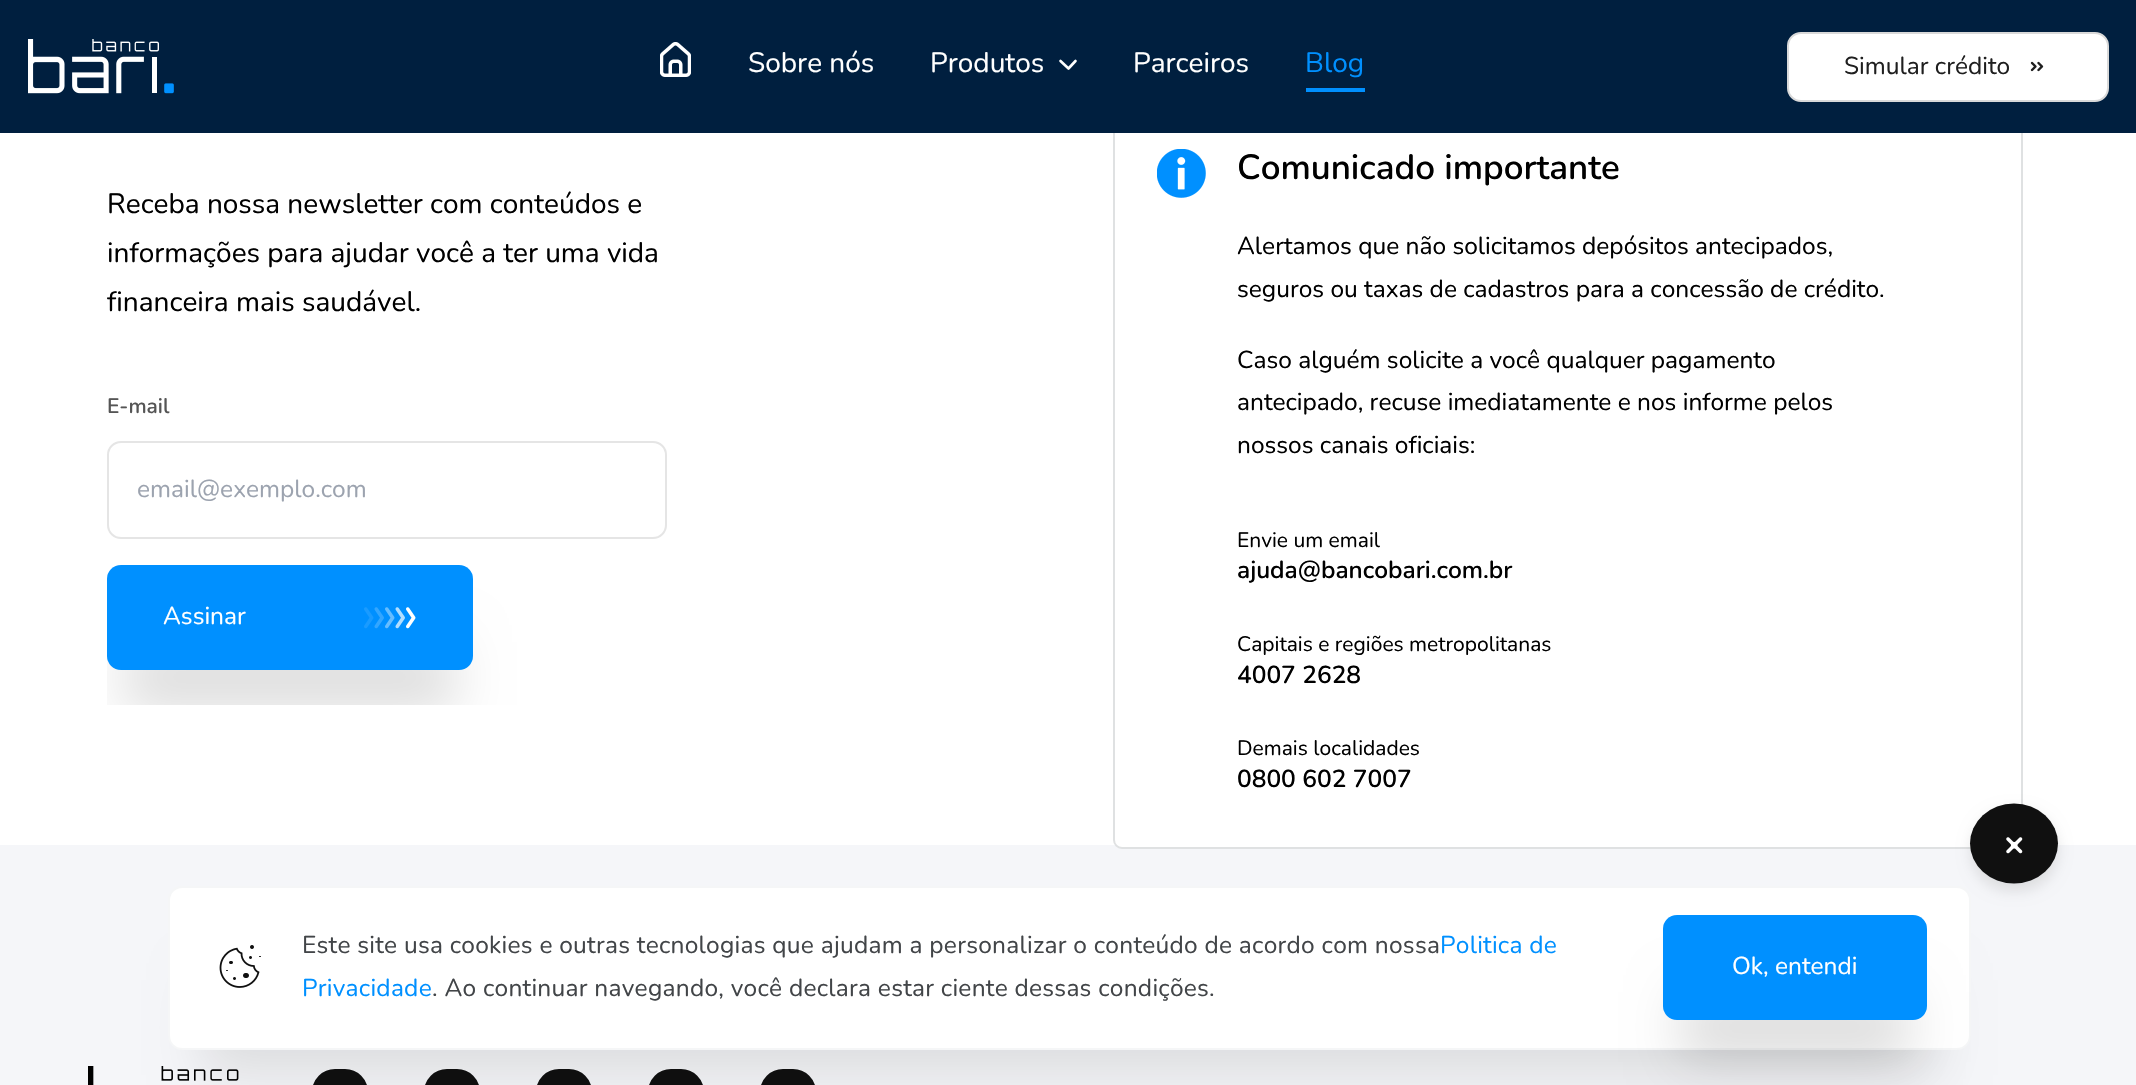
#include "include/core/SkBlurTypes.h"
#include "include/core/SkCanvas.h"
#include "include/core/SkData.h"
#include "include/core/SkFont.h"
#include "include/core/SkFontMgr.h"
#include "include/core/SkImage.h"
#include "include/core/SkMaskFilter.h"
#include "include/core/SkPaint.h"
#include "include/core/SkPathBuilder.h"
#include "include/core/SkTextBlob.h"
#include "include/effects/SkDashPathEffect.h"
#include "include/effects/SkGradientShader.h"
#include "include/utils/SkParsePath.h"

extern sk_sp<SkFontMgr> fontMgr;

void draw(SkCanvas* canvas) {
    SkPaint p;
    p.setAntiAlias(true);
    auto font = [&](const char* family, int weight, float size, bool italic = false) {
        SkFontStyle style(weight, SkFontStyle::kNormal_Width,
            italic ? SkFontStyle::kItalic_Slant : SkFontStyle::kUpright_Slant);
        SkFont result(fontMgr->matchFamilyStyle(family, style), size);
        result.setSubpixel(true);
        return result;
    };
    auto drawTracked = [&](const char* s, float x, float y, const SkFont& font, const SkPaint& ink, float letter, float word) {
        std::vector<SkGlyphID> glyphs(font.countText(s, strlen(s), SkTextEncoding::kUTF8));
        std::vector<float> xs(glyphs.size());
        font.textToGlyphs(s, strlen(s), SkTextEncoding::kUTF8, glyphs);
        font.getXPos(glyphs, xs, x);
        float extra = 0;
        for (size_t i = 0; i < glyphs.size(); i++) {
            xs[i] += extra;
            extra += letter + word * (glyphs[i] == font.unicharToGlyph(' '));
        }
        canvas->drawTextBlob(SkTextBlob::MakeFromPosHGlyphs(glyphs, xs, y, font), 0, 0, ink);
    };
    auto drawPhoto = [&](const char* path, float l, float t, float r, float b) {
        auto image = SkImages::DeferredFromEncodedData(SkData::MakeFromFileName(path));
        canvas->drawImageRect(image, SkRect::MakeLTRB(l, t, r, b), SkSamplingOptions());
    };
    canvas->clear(0xFFFFFFFF);
    p.setColor(0xFFF5F6F9);
    canvas->drawRect(SkRect::MakeLTRB(0, 845, 2136, 1085), p);
    p.setColor(0xFFFFFFFF);
    canvas->drawRoundRect(SkRect::MakeLTRB(1114, 87, 2022, 848), 8, 8, p);
    p.setStyle(SkPaint::kStroke_Style);
    p.setStrokeWidth(2);
    p.setColor(0xFFDFE1E2);
    canvas->drawRoundRect(SkRect::MakeLTRB(1114, 87, 2022, 848), 8, 8, p);
    p.setStyle(SkPaint::kFill_Style);
    p.setColor(0xFF001F3F);
    canvas->drawRect(SkRect::MakeLTRB(0, 0, 2136, 133), p);
    drawPhoto("media/1.png", 28, 39, 174, 94);
    drawPhoto("media/2.png", 660, 42, 691, 77);
    auto font1 = font("Nunito", 400, 28);
    p.setColor(0xFFFFFFFF);
    canvas->drawString("Sobre nós", 748, 72, font1, p);
    canvas->drawString("Produtos", 930, 72, font1, p);
    p.setStyle(SkPaint::kStroke_Style);
    p.setStrokeWidth(2.6f);
    p.setStrokeCap(SkPaint::kRound_Cap);
    p.setStrokeJoin(SkPaint::kRound_Join);
    canvas->drawPath(SkPathBuilder().moveTo(1060.5f, 61).lineTo(1068.5f, 68.5f).lineTo(1075.5f, 61).detach(), p);
    p.setStyle(SkPaint::kFill_Style);
    canvas->drawString("Parceiros", 1133, 72, font1, p);
    p.setColor(0xFF0090FF);
    canvas->drawRect(SkRect::MakeLTRB(1306, 88, 1365, 92), p);
    canvas->drawString("Blog", 1305, 72, font1, p);
    p.setColor(0xFFFFFFFF);
    canvas->drawRoundRect(SkRect::MakeLTRB(1788, 33, 2108, 101), 13, 13, p);
    p.setStyle(SkPaint::kStroke_Style);
    p.setStrokeWidth(2);
    p.setStrokeCap(SkPaint::kButt_Cap);
    p.setStrokeJoin(SkPaint::kMiter_Join);
    p.setColor(0xFFD9D9D9);
    canvas->drawRoundRect(SkRect::MakeLTRB(1788, 33, 2108, 101), 13, 13, p);
    auto font2 = font("Nunito", 400, 24.5f);
    p.setStyle(SkPaint::kFill_Style);
    p.setColor(0xFF1F1F1F);
    canvas->drawString("Simular crédito", 1844, 74, font2, p);
    drawPhoto("media/3.png", 2030, 61, 2044, 72);
    p.setColor(0xFF000000);
    {
        const struct { const char* s; float x, y; } items[] = {
            {"Receba nossa newsletter com conteúdos e", 107, 213},
            {"informações para ajudar você a ter uma vida", 107, 262},
            {"financeira mais saudável.", 107, 311},
        };
        for (auto [s, x, y] : items) {
            canvas->drawString(s, x, y, font1, p);
        }
    }
    auto font3 = font("Nunito", 600, 21);
    p.setColor(0xFF555555);
    canvas->drawString("E-mail", 107, 413, font3, p);
    p.setStyle(SkPaint::kStroke_Style);
    p.setColor(0xFFE5E5E5);
    canvas->drawRoundRect(SkRect::MakeLTRB(108, 442, 666, 538), 13, 13, p);
    p.setStyle(SkPaint::kFill_Style);
    p.setColor(0xFF9CA3AF);
    canvas->drawString("email@exemplo.com", 137, 497, font2, p);
    canvas->save();
    canvas->clipRect(SkRect::MakeLTRB(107, 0, 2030, 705));
    p.setColor(0x21000000);
    p.setMaskFilter(SkMaskFilter::MakeBlur(kNormal_SkBlurStyle, 26));
    canvas->drawRect(SkRect::MakeLTRB(124, 642, 455, 712), p);
    p.setMaskFilter(nullptr);
    canvas->restore();
    p.setColor(0xFF0090FF);
    canvas->drawRoundRect(SkRect::MakeLTRB(107, 565, 473, 670), 14, 14, p);
    p.setColor(0xFFFFFFFF);
    canvas->drawString("Assinar", 163, 624, font2, p);
    drawPhoto("media/4.png", 364, 607, 416, 629);
    drawPhoto("media/5.png", 1157, 149, 1206, 198);
    auto font4 = font("Nunito", 600, 35);
    p.setColor(0xFF000000);
    canvas->drawString("Comunicado importante", 1237, 179, font4, p);
    {
        const struct { const char* s; float x, y; } items[] = {
            {"Alertamos que não solicitamos depósitos antecipados,", 1237, 254},
            {"seguros ou taxas de cadastros para a concessão de crédito.", 1237, 297},
            {"Caso alguém solicite a você qualquer pagamento", 1237, 368},
            {"antecipado, recuse imediatamente e nos informe pelos", 1237, 410},
            {"nossos canais oficiais:", 1237, 453},
        };
        for (auto [s, x, y] : items) {
            canvas->drawString(s, x, y, font2, p);
        }
    }
    auto font5 = font("Nunito", 400, 21);
    canvas->drawString("Envie um email", 1237, 547, font5, p);
    auto font6 = font("Nunito", 600, 24.5f);
    canvas->drawString("ajuda@bancobari.com.br", 1237, 578, font6, p);
    canvas->drawString("Capitais e regiões metropolitanas", 1237, 651, font5, p);
    canvas->drawString("4007 2628", 1237, 683, font6, p);
    canvas->drawString("Demais localidades", 1237, 755, font5, p);
    canvas->drawString("0800 602 7007", 1237, 787, font6, p);
    p.setColor(0x1A000000);
    p.setMaskFilter(SkMaskFilter::MakeBlur(kNormal_SkBlurStyle, 7));
    canvas->drawRoundRect(SkRect::MakeLTRB(1971, 810, 2058, 891), 40.5f, 40.5f, p);
    p.setMaskFilter(nullptr);
    p.setColor(0xFF101010);
    canvas->drawOval(SkRect::MakeLTRB(1970, 803.5f, 2058, 883.5f), p);
    drawPhoto("media/6.png", 2006, 837, 2023, 854);
    drawPhoto("media/7.png", 88, 1066, 239, 1085);
    canvas->drawRoundRect(SkRect::MakeLTRB(313, 1070, 367, 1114), 27, 27, p);
    p.setStyle(SkPaint::kStroke_Style);
    canvas->drawRoundRect(SkRect::MakeLTRB(313, 1070, 367, 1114), 27, 27, p);
    p.setStyle(SkPaint::kFill_Style);
    canvas->drawRoundRect(SkRect::MakeLTRB(425, 1070, 479, 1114), 27, 27, p);
    p.setStyle(SkPaint::kStroke_Style);
    canvas->drawRoundRect(SkRect::MakeLTRB(425, 1070, 479, 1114), 27, 27, p);
    p.setStyle(SkPaint::kFill_Style);
    canvas->drawRoundRect(SkRect::MakeLTRB(537, 1070, 591, 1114), 27, 27, p);
    p.setStyle(SkPaint::kStroke_Style);
    canvas->drawRoundRect(SkRect::MakeLTRB(537, 1070, 591, 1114), 27, 27, p);
    p.setStyle(SkPaint::kFill_Style);
    canvas->drawRoundRect(SkRect::MakeLTRB(649, 1070, 703, 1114), 27, 27, p);
    p.setStyle(SkPaint::kStroke_Style);
    canvas->drawRoundRect(SkRect::MakeLTRB(649, 1070, 703, 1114), 27, 27, p);
    p.setStyle(SkPaint::kFill_Style);
    canvas->drawRoundRect(SkRect::MakeLTRB(761, 1070, 815, 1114), 27, 27, p);
    p.setStyle(SkPaint::kStroke_Style);
    canvas->drawRoundRect(SkRect::MakeLTRB(761, 1070, 815, 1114), 27, 27, p);
    p.setStyle(SkPaint::kFill_Style);
    p.setColor(0x1A000000);
    p.setMaskFilter(SkMaskFilter::MakeBlur(kNormal_SkBlurStyle, 26));
    canvas->drawRect(SkRect::MakeLTRB(203, 980, 1936, 1075), p);
    p.setMaskFilter(nullptr);
    p.setColor(0xFFFFFFFF);
    canvas->drawRoundRect(SkRect::MakeLTRB(169, 887, 1970, 1049), 13, 13, p);
    p.setStyle(SkPaint::kStroke_Style);
    p.setColor(0xFFF5F6F7);
    canvas->drawRoundRect(SkRect::MakeLTRB(169, 887, 1970, 1049), 13, 13, p);
    drawPhoto("media/8.png", 219, 945, 261, 988);
    p.setStyle(SkPaint::kFill_Style);
    p.setColor(0xFF424548);
    drawTracked("Este site usa cookies e outras tecnologias que ajudam a personalizar o conteúdo de acordo com nossa", 302, 953, font2, p, 0.25f, 0);
    p.setColor(0xFF0090FF);
    drawTracked("Politica de", 1440, 953, font2, p, 0.25f, 0);
    drawTracked("Privacidade", 302, 996, font2, p, 0.25f, 0);
    p.setColor(0xFF424548);
    drawTracked(". Ao continuar navegando, você declara estar ciente dessas condições.", 432, 996, font2, p, 0.25f, 0);
    p.setColor(0x21000000);
    p.setMaskFilter(SkMaskFilter::MakeBlur(kNormal_SkBlurStyle, 26));
    canvas->drawRect(SkRect::MakeLTRB(1680, 992, 1909, 1062), p);
    p.setMaskFilter(nullptr);
    p.setColor(0xFF0090FF);
    canvas->drawRoundRect(SkRect::MakeLTRB(1663, 915, 1927, 1020), 14, 14, p);
    p.setColor(0xFFFFFFFF);
    canvas->drawString("Ok, entendi", 1732, 974, font2, p);
}
